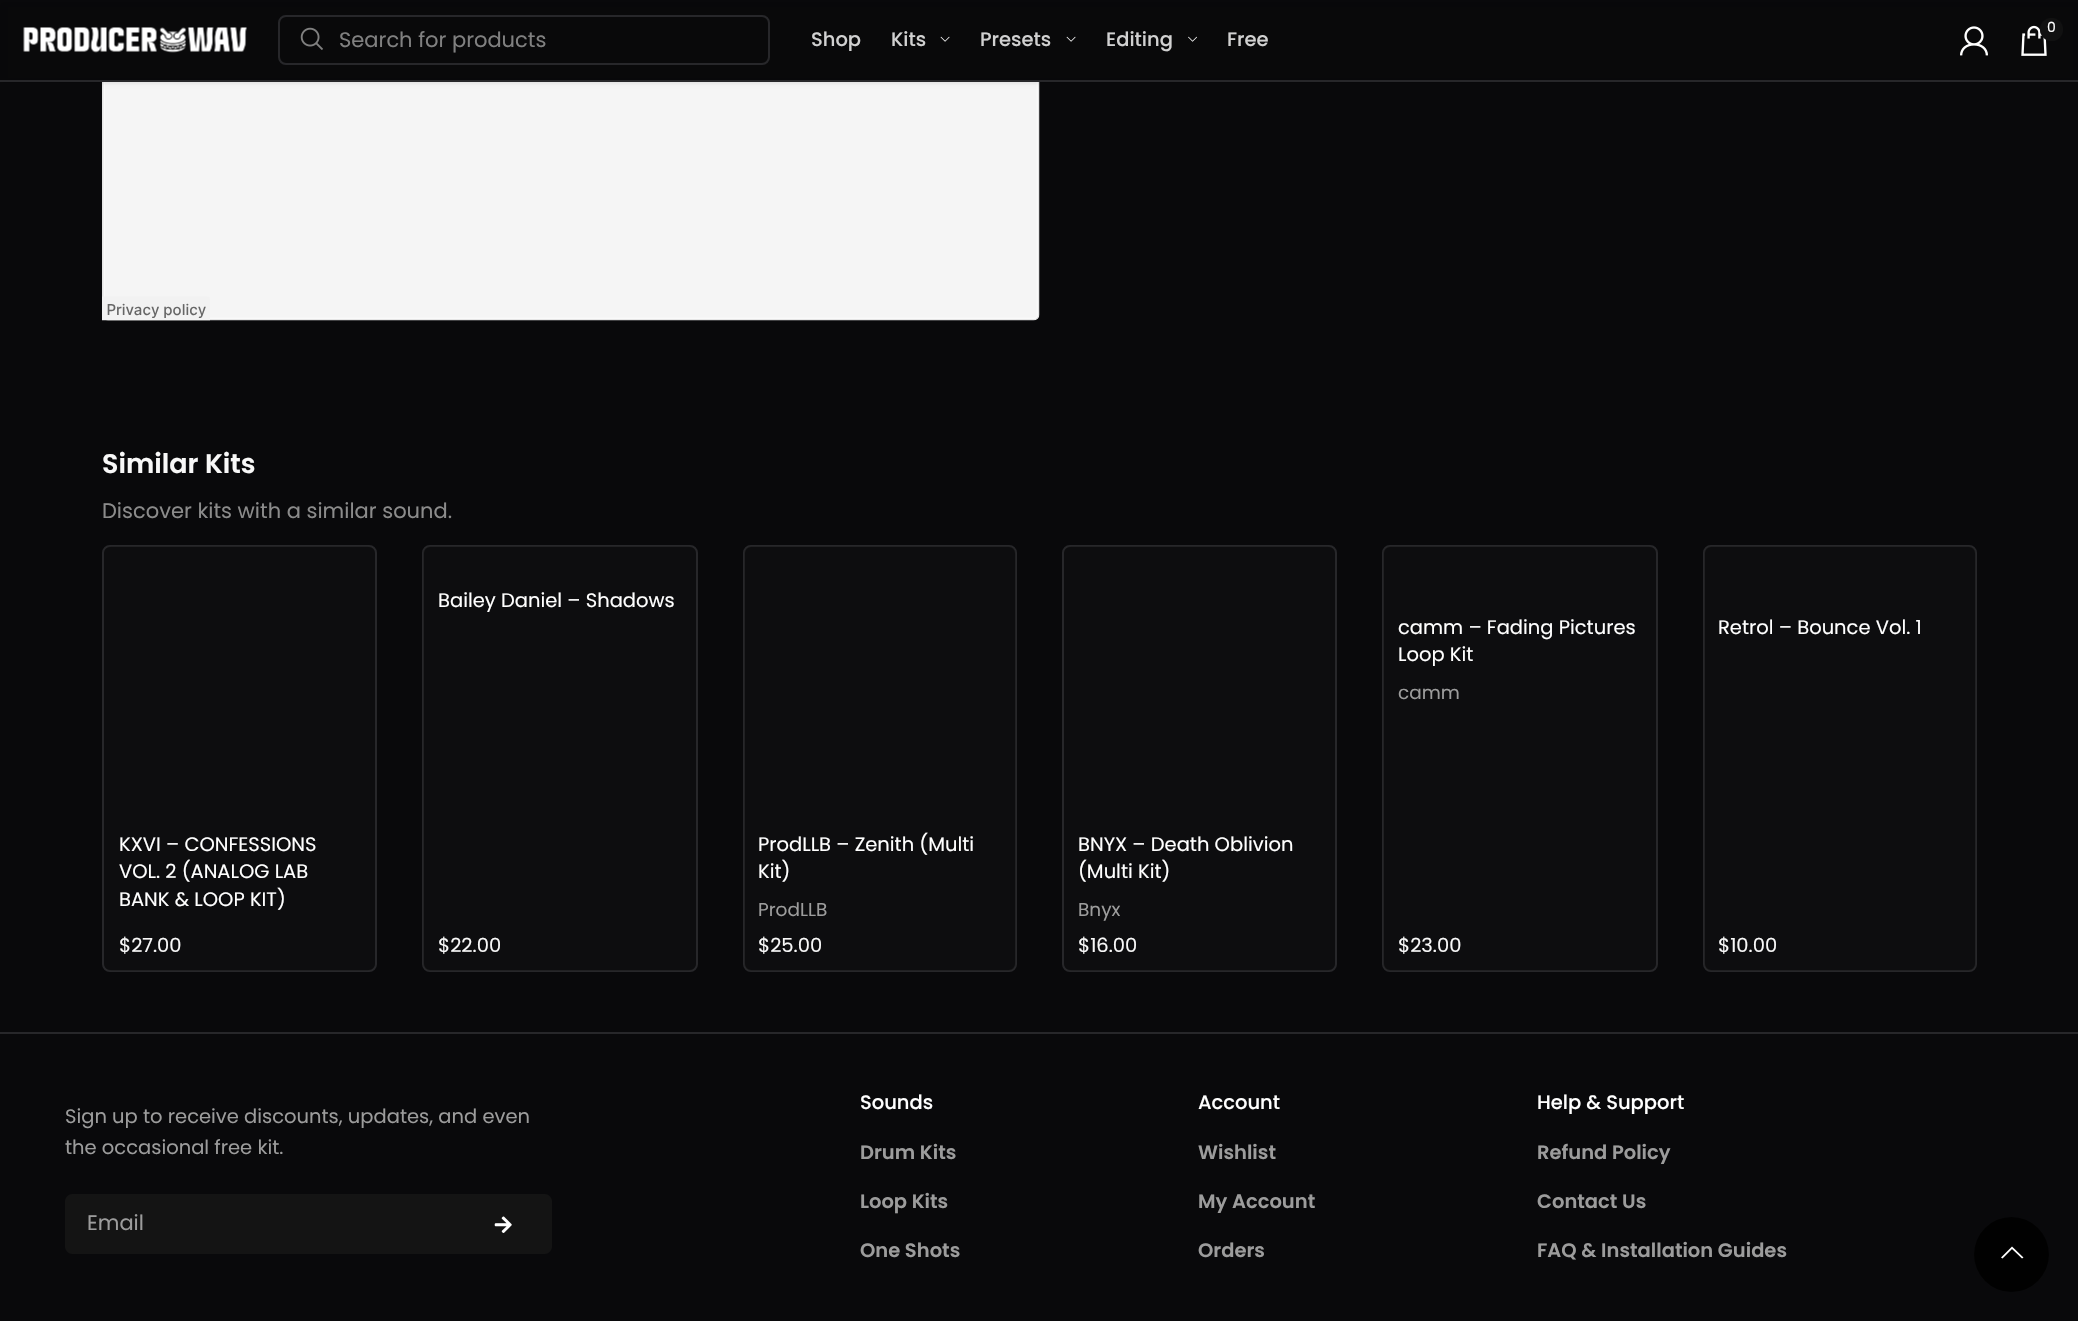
#include "include/core/SkBlurTypes.h"
#include "include/core/SkCanvas.h"
#include "include/core/SkData.h"
#include "include/core/SkFont.h"
#include "include/core/SkFontMgr.h"
#include "include/core/SkImage.h"
#include "include/core/SkMaskFilter.h"
#include "include/core/SkPaint.h"
#include "include/core/SkPathBuilder.h"
#include "include/core/SkTextBlob.h"
#include "include/effects/SkDashPathEffect.h"
#include "include/effects/SkGradientShader.h"
#include "include/utils/SkParsePath.h"

extern sk_sp<SkFontMgr> fontMgr;

void draw(SkCanvas* canvas) {
    SkPaint p;
    p.setAntiAlias(true);
    auto font = [&](const char* family, int weight, float size, bool italic = false) {
        SkFontStyle style(weight, SkFontStyle::kNormal_Width,
            italic ? SkFontStyle::kItalic_Slant : SkFontStyle::kUpright_Slant);
        SkFont result(fontMgr->matchFamilyStyle(family, style), size);
        result.setSubpixel(true);
        return result;
    };
    auto drawPhoto = [&](const char* path, float l, float t, float r, float b) {
        auto image = SkImages::DeferredFromEncodedData(SkData::MakeFromFileName(path));
        canvas->drawImageRect(image, SkRect::MakeLTRB(l, t, r, b), SkSamplingOptions());
    };
    canvas->clear(0xFF09090B);
    drawPhoto("media/7.png", 102, 82, 1040, 321);
    p.setColor(0x1A000000);
    p.setMaskFilter(SkMaskFilter::MakeBlur(kNormal_SkBlurStyle, 2));
    canvas->drawRect(SkRect::MakeLTRB(0, 2, 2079, 83), p);
    p.setMaskFilter(nullptr);
    p.setColor(0xFF27272A);
    canvas->drawRect(SkRect::MakeLTRB(0, 80, 2078, 82), p);
    drawPhoto("media/1.png", 1960, 26, 1988, 56);
    drawPhoto("media/2.png", 2021, 25, 2047, 56);
    p.setColor(0xFF111111);
    canvas->drawCircle(2051.5f, 29.5f, 11.5f, p);
    auto font1 = font("Poppins", 400, 14);
    p.setColor(0xFFFFFFFF);
    canvas->drawString("0", 2047, 32, font1, p);
    drawPhoto("media/3.png", 23, 27, 247, 53);
    p.setStyle(SkPaint::kStroke_Style);
    p.setStrokeWidth(2);
    p.setColor(0xFF27272A);
    canvas->drawRoundRect(SkRect::MakeLTRB(279, 16, 769, 64), 7, 7, p);
    drawPhoto("media/4.png", 300, 27, 323, 50);
    auto font2 = font("Poppins", 400, 21);
    p.setStyle(SkPaint::kFill_Style);
    p.setColor(0xFF808080);
    canvas->drawString("Search for products", 339, 47, font2, p);
    auto font3 = font("Poppins", 500, 19.5f);
    p.setColor(0xFFD1D1D1);
    canvas->drawString("Shop", 811, 46, font3, p);
    canvas->drawString("Kits", 891, 46, font3, p);
    drawPhoto("media/5.png", 940, 36, 950, 42);
    canvas->drawString("Presets", 980, 46, font3, p);
    drawPhoto("media/5.png", 1066, 36, 1076, 42);
    canvas->drawString("Editing", 1106, 46, font3, p);
    drawPhoto("media/6.png", 1188, 36, 1197, 42);
    canvas->drawString("Free", 1227, 46, font3, p);
    auto font4 = font("Poppins", 600, 27);
    p.setColor(0xFFF8F8F8);
    canvas->drawString("Similar Kits", 102, 473, font4, p);
    p.setColor(0xFF8B8B8B);
    canvas->drawString("Discover kits with a similar sound.", 102, 518, font2, p);
    p.setStyle(SkPaint::kStroke_Style);
    p.setColor(0xFF27272A);
    canvas->drawRoundRect(SkRect::MakeLTRB(103, 546, 376, 971), 7, 7, p);
    p.setStyle(SkPaint::kFill_Style);
    p.setColor(0x59131313);
    canvas->drawRoundRect(SkRect::MakeLTRB(104, 546, 375, 971), 8, 8, p);
    auto font5 = font("Poppins", 400, 19.5f);
    p.setColor(0xFFFFFFFF);
    {
        const struct { const char* s; float x, y; } items[] = {
            {"KXVI – CONFESSIONS", 119, 851},
            {"VOL. 2 (ANALOG LAB", 119, 878},
            {"BANK & LOOP KIT)", 119, 906},
        };
        for (auto [s, x, y] : items) {
            canvas->drawString(s, x, y, font5, p);
        }
    }
    p.setColor(0xFFF8F8F8);
    canvas->drawString("$27.00", 119, 952, font5, p);
    p.setStyle(SkPaint::kStroke_Style);
    p.setColor(0xFF27272A);
    canvas->drawRoundRect(SkRect::MakeLTRB(423, 546, 697, 971), 7, 7, p);
    p.setStyle(SkPaint::kFill_Style);
    p.setColor(0x59131313);
    canvas->drawRoundRect(SkRect::MakeLTRB(423, 546, 696, 971), 8, 8, p);
    p.setColor(0xFFFFFFFF);
    canvas->drawString("Bailey Daniel – Shadows", 438, 607, font5, p);
    p.setColor(0xFFF8F8F8);
    canvas->drawString("$22.00", 438, 952, font5, p);
    p.setStyle(SkPaint::kStroke_Style);
    p.setColor(0xFF27272A);
    canvas->drawRoundRect(SkRect::MakeLTRB(744, 546, 1016, 971), 7, 7, p);
    p.setStyle(SkPaint::kFill_Style);
    p.setColor(0x59131313);
    canvas->drawRoundRect(SkRect::MakeLTRB(744, 546, 1016, 971), 8, 8, p);
    p.setColor(0xFFFFFFFF);
    canvas->drawString("ProdLLB – Zenith (Multi", 758, 851, font5, p);
    canvas->drawString("Kit)", 758, 878, font5, p);
    auto font6 = font("Poppins", 400, 18.5f);
    p.setColor(0xFF9C9C9C);
    canvas->drawString("ProdLLB", 758, 916, font6, p);
    p.setColor(0xFFF8F8F8);
    canvas->drawString("$25.00", 758, 952, font5, p);
    p.setStyle(SkPaint::kStroke_Style);
    p.setColor(0xFF27272A);
    canvas->drawRoundRect(SkRect::MakeLTRB(1063, 546, 1336, 971), 7, 7, p);
    p.setStyle(SkPaint::kFill_Style);
    p.setColor(0x59131313);
    canvas->drawRoundRect(SkRect::MakeLTRB(1064, 546, 1335, 971), 8, 8, p);
    p.setColor(0xFFFFFFFF);
    canvas->drawString("BNYX – Death Oblivion", 1078, 851, font5, p);
    canvas->drawString("(Multi Kit)", 1078, 878, font5, p);
    p.setColor(0xFF9C9C9C);
    canvas->drawString("Bnyx", 1078, 916, font6, p);
    p.setColor(0xFFF8F8F8);
    canvas->drawString("$16.00", 1078, 952, font5, p);
    p.setStyle(SkPaint::kStroke_Style);
    p.setColor(0xFF27272A);
    canvas->drawRoundRect(SkRect::MakeLTRB(1383, 546, 1657, 971), 7, 7, p);
    p.setStyle(SkPaint::kFill_Style);
    p.setColor(0x59131313);
    canvas->drawRoundRect(SkRect::MakeLTRB(1383, 546, 1656, 971), 8, 8, p);
    p.setColor(0xFFFFFFFF);
    canvas->drawString("camm – Fading Pictures", 1398, 634, font5, p);
    canvas->drawString("Loop Kit", 1398, 661, font5, p);
    p.setColor(0xFF9C9C9C);
    canvas->drawString("camm", 1398, 699, font6, p);
    p.setColor(0xFFF8F8F8);
    canvas->drawString("$23.00", 1398, 952, font5, p);
    p.setStyle(SkPaint::kStroke_Style);
    p.setColor(0xFF27272A);
    canvas->drawRoundRect(SkRect::MakeLTRB(1704, 546, 1976, 971), 7, 7, p);
    p.setStyle(SkPaint::kFill_Style);
    p.setColor(0x59131313);
    canvas->drawRoundRect(SkRect::MakeLTRB(1704, 546, 1976, 971), 8, 8, p);
    p.setColor(0xFFFFFFFF);
    canvas->drawString("Retrol – Bounce Vol. 1", 1718, 634, font5, p);
    p.setColor(0xFFF8F8F8);
    canvas->drawString("$10.00", 1718, 952, font5, p);
    p.setColor(0xFF27272A);
    canvas->drawRect(SkRect::MakeLTRB(0, 1032, 2078, 1034), p);
    p.setColor(0xFF9C9C9C);
    canvas->drawString("Sign up to receive discounts, updates, and even", 65, 1123, font5, p);
    canvas->drawString("the occasional free kit.", 65, 1154, font5, p);
    p.setColor(0xFF141414);
    canvas->drawPath(SkPathBuilder().moveTo(73, 1194).lineTo(455, 1194).lineTo(455, 1254).lineTo(73, 1254).cubicTo(68.5f, 1254, 65, 1250.5f, 65, 1246).lineTo(65, 1202).cubicTo(65, 1197.5f, 68.5f, 1194, 73, 1194).close().detach(), p);
    p.setColor(0xFF9C9C9C);
    canvas->drawString("Email", 87, 1230, font2, p);
    p.setColor(0xFF141414);
    canvas->drawPath(SkPathBuilder().moveTo(455, 1194).lineTo(544, 1194).cubicTo(548.5f, 1194, 552, 1197.5f, 552, 1202).lineTo(552, 1246).cubicTo(552, 1250.5f, 548.5f, 1254, 544, 1254).lineTo(455, 1254).close().detach(), p);
    drawPhoto("media/8.png", 494, 1216, 512, 1233);
    p.setColor(0xFFFFFFFF);
    canvas->drawString("Sounds", 860, 1109, font3, p);
    auto font7 = font("Poppins", 600, 19.5f);
    p.setColor(0xFF9C9C9C);
    {
        const struct { const char* s; float x, y; } items[] = {
            {"Drum Kits", 860, 1159},
            {"Loop Kits", 860, 1208},
            {"One Shots", 860, 1257},
        };
        for (auto [s, x, y] : items) {
            canvas->drawString(s, x, y, font7, p);
        }
    }
    p.setColor(0xFFFFFFFF);
    canvas->drawString("Account", 1198, 1109, font3, p);
    p.setColor(0xFF9C9C9C);
    {
        const struct { const char* s; float x, y; } items[] = {
            {"Wishlist", 1198, 1159},
            {"My Account", 1198, 1208},
            {"Orders", 1198, 1257},
        };
        for (auto [s, x, y] : items) {
            canvas->drawString(s, x, y, font7, p);
        }
    }
    p.setColor(0xFFFFFFFF);
    canvas->drawString("Help & Support", 1537, 1109, font3, p);
    p.setColor(0xFF9C9C9C);
    {
        const struct { const char* s; float x, y; } items[] = {
            {"Refund Policy", 1537, 1159},
            {"Contact Us", 1537, 1208},
            {"FAQ & Installation Guides", 1537, 1257},
        };
        for (auto [s, x, y] : items) {
            canvas->drawString(s, x, y, font7, p);
        }
    }
    p.setColor(0xFF010101);
    canvas->drawCircle(2011.5f, 1254.5f, 37.5f, p);
    p.setColor(0xFFFFFFFF);
    canvas->drawPath(SkPathBuilder().moveTo(2022, 1258.5f).lineTo(2023.5f, 1257.5f).lineTo(2012, 1246.5f).lineTo(2001, 1257.5f).lineTo(2002.5f, 1258.5f).lineTo(2012, 1249).close().detach(), p);
}
